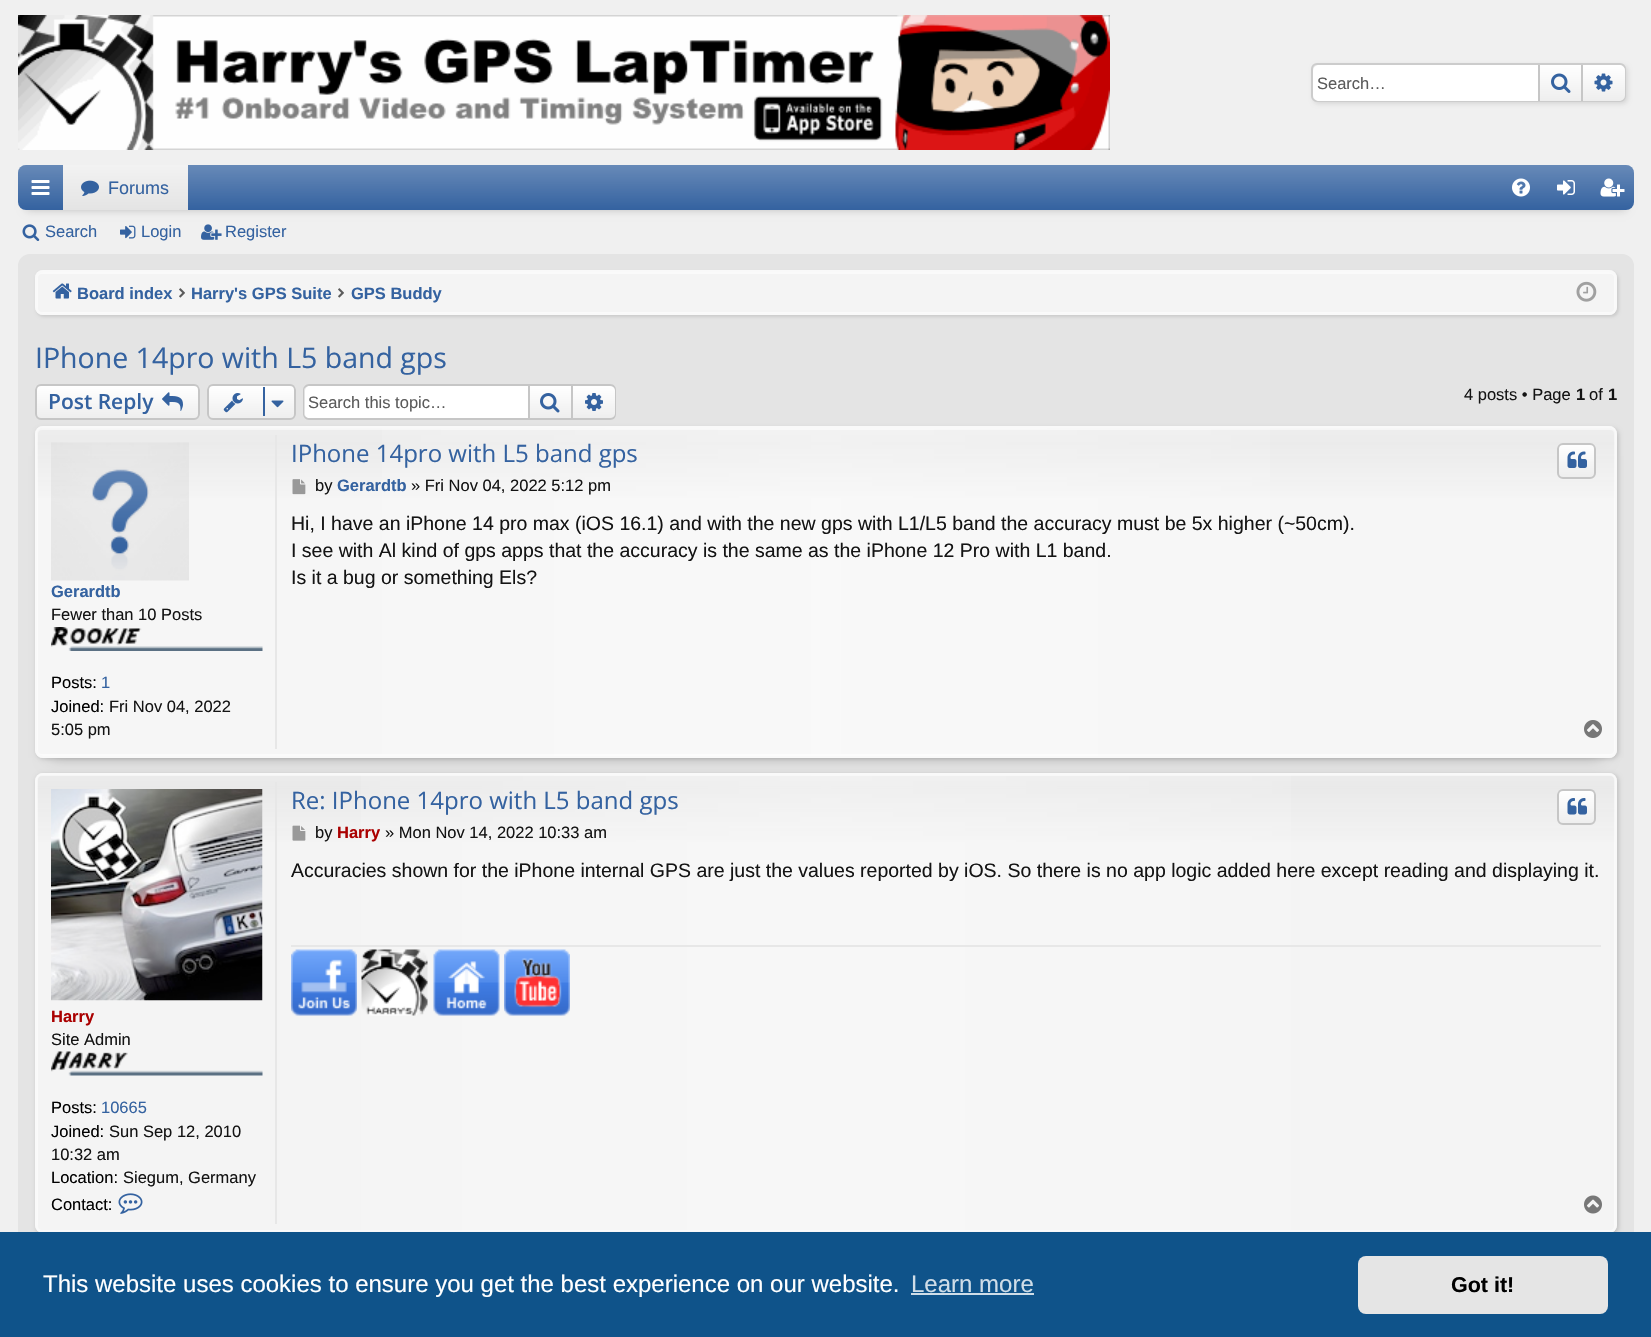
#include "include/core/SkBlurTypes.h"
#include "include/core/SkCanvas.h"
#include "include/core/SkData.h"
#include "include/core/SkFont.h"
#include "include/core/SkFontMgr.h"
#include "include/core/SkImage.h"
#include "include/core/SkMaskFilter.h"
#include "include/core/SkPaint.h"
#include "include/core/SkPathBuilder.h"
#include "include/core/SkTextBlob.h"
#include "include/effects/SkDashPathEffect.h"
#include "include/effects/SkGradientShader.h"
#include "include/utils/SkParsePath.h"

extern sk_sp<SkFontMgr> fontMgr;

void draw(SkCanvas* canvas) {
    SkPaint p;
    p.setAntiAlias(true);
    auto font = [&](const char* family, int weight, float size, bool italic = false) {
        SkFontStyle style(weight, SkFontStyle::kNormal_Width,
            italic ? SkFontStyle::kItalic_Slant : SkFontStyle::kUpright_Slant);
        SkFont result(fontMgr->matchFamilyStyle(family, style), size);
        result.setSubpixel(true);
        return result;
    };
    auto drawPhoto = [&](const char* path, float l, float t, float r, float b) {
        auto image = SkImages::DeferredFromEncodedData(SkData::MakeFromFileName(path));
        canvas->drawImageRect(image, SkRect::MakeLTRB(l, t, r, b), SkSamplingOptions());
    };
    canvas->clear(0xFFF0F0F0);
    drawPhoto("media/1.png", 18, 15, 1110, 150);
    p.setColor(0x1A000000);
    p.setMaskFilter(SkMaskFilter::MakeBlur(kNormal_SkBlurStyle, 2));
    canvas->drawRoundRect(SkRect::MakeLTRB(1313, 65, 1628, 104), 6, 6, p);
    p.setMaskFilter(nullptr);
    p.setStyle(SkPaint::kStroke_Style);
    p.setStrokeWidth(2);
    p.setColor(0xFFCCCCCC);
    canvas->drawRoundRect(SkRect::MakeLTRB(1312, 64, 1625, 101), 5, 5, p);
    p.setStyle(SkPaint::kFill_Style);
    p.setColor(0xFFFFFFFF);
    canvas->drawPath(SkPathBuilder().moveTo(1319, 65).lineTo(1538, 65).lineTo(1538, 101).lineTo(1319, 101).cubicTo(1315.5f, 101, 1313, 98.5f, 1313, 95).lineTo(1313, 71).cubicTo(1313, 67.5f, 1315.5f, 65, 1319, 65).close().detach(), p);
    auto font1 = font("Liberation Sans", 400, 16.5f);
    p.setColor(0xFF5B5B5B);
    canvas->drawString("Search…", 1317, 89, font1, p);
    {
        const SkColor colors[] = {0xFFFFFFFF, 0xFFEEEEEE};
        const float stops[] = {0, 1};
        const SkPoint ends[] = {{1560, 65}, {1560, 101}};
        p.setShader(SkGradientShader::MakeLinear(ends, colors, stops, 2, SkTileMode::kClamp));
        p.setAlpha(255);
    }
    canvas->drawRect(SkRect::MakeLTRB(1540, 65, 1581, 101), p);
    p.setShader(nullptr);
    p.setColor(0xFFC6C6C6);
    canvas->drawRect(SkRect::MakeLTRB(1581, 65, 1583, 101), p);
    canvas->drawRect(SkRect::MakeLTRB(1538, 65, 1540, 101), p);
    drawPhoto("media/2.png", 1551, 73, 1571, 93);
    p.setColor(0xFFEEEEEE);
    canvas->drawPath(SkPathBuilder().moveTo(1583, 65).lineTo(1619, 65).cubicTo(1622.5f, 65, 1625, 67.5f, 1625, 71).lineTo(1625, 95).cubicTo(1625, 98.5f, 1622.5f, 101, 1619, 101).lineTo(1583, 101).close().detach(), p);
    {
        const SkColor colors[] = {0xFFFFFFFF, 0x00FFFFFF};
        const float stops[] = {0, 1};
        const SkPoint ends[] = {{1604, 65}, {1604, 101}};
        p.setShader(SkGradientShader::MakeLinear(ends, colors, stops, 2, SkTileMode::kClamp));
        p.setAlpha(255);
    }
    canvas->drawPath(SkPathBuilder().moveTo(1583, 65).lineTo(1619, 65).cubicTo(1622.5f, 65, 1625, 67.5f, 1625, 71).lineTo(1625, 95).cubicTo(1625, 98.5f, 1622.5f, 101, 1619, 101).lineTo(1583, 101).close().detach(), p);
    drawPhoto("media/3.png", 1594, 73, 1613, 92);
    p.setShader(nullptr);
    p.setColor(0x33000000);
    p.setMaskFilter(SkMaskFilter::MakeBlur(kNormal_SkBlurStyle, 4));
    canvas->drawRect(SkRect::MakeLTRB(26, 180, 1626, 210), p);
    p.setMaskFilter(nullptr);
    p.setColor(0xFF3462A0);
    canvas->drawRoundRect(SkRect::MakeLTRB(18, 165, 1634, 210), 8, 8, p);
    {
        const SkColor colors[] = {0x40FFFFFF, 0x00FFFFFF};
        const float stops[] = {0, 1};
        const SkPoint ends[] = {{826, 165}, {826, 210}};
        p.setShader(SkGradientShader::MakeLinear(ends, colors, stops, 2, SkTileMode::kClamp));
        p.setAlpha(255);
    }
    canvas->drawRoundRect(SkRect::MakeLTRB(18, 165, 1634, 210), 8, 8, p);
    drawPhoto("media/4.png", 31, 180, 50, 195);
    {
        const SkColor colors[] = {0xFFF2F2F2, 0xFFE4E4E4};
        const float stops[] = {0, 1};
        const SkPoint ends[] = {{125, 165}, {125, 210}};
        p.setShader(SkGradientShader::MakeLinear(ends, colors, stops, 2, SkTileMode::kClamp));
        p.setAlpha(255);
    }
    canvas->drawRect(SkRect::MakeLTRB(63, 165, 188, 210), p);
    drawPhoto("media/5.png", 81, 180, 99, 196);
    auto font2 = font("Liberation Sans", 400, 18);
    p.setShader(nullptr);
    p.setColor(0xFF3462A0);
    canvas->drawString("Forums", 108, 194, font2, p);
    drawPhoto("media/6.png", 1512, 178, 1530, 197);
    drawPhoto("media/7.png", 1557, 180, 1575, 195);
    drawPhoto("media/8.png", 1600, 178, 1625, 197);
    drawPhoto("media/9.png", 22, 224, 40, 241);
    canvas->drawString("Search", 45, 237, font1, p);
    drawPhoto("media/10.png", 120, 225, 136, 239);
    canvas->drawString("Login", 141, 237, font1, p);
    drawPhoto("media/11.png", 201, 224, 222, 240);
    canvas->drawString("Register", 225, 237, font1, p);
    p.setColor(0xFFE4E4E4);
    canvas->drawRoundRect(SkRect::MakeLTRB(19, 255, 1633, 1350), 11, 11, p);
    p.setStyle(SkPaint::kStroke_Style);
    canvas->drawRoundRect(SkRect::MakeLTRB(19, 255, 1633, 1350), 11, 11, p);
    p.setStyle(SkPaint::kFill_Style);
    p.setColor(0x1A000000);
    p.setMaskFilter(SkMaskFilter::MakeBlur(kNormal_SkBlurStyle, 1.5f));
    canvas->drawRoundRect(SkRect::MakeLTRB(36, 272, 1619, 317), 8, 8, p);
    p.setMaskFilter(nullptr);
    p.setColor(0xFFF4F4F4);
    canvas->drawRoundRect(SkRect::MakeLTRB(35, 270, 1617, 315), 8, 8, p);
    p.setStyle(SkPaint::kStroke_Style);
    p.setColor(0xFFFAFAFA);
    canvas->drawRoundRect(SkRect::MakeLTRB(37, 273, 1615, 313), 5, 5, p);
    p.setColor(0xFFF9F9F9);
    canvas->drawRoundRect(SkRect::MakeLTRB(36, 271, 1616, 314), 7, 7, p);
    drawPhoto("media/12.png", 52, 283, 72, 299);
    auto font3 = font("Liberation Sans", 700, 16.5f);
    p.setStyle(SkPaint::kFill_Style);
    p.setColor(0xFF3462A0);
    canvas->drawString("Board index", 77, 299, font3, p);
    drawPhoto("media/13.png", 179, 288, 185, 298);
    canvas->drawString("Harry's GPS Suite", 191, 299, font3, p);
    drawPhoto("media/13.png", 338, 288, 344, 298);
    canvas->drawString("GPS Buddy", 351, 299, font3, p);
    drawPhoto("media/14.png", 1576, 281, 1597, 302);
    auto font4 = font("Open Sans", 400, 28.5f);
    canvas->drawString("IPhone 14pro with L5 band gps", 35, 368, font4, p);
    canvas->save();
    canvas->clipPath(SkPathBuilder().moveTo(41, 384).lineTo(194, 384).cubicTo(197.5f, 384, 200, 386.5f, 200, 390).lineTo(200, 414).cubicTo(200, 417.5f, 197.5f, 420, 194, 420).lineTo(41, 420).cubicTo(37.5f, 420, 35, 417.5f, 35, 414).lineTo(35, 390).cubicTo(35, 386.5f, 37.5f, 384, 41, 384).close().detach(), true);
    {
        const SkColor colors[] = {0xFFFFFFFF, 0xFFEEEEEE};
        const float stops[] = {0, 1};
        const SkPoint ends[] = {{117, 386}, {117, 419}};
        p.setShader(SkGradientShader::MakeLinear(ends, colors, stops, 2, SkTileMode::kClamp));
        p.setAlpha(255);
    }
    canvas->drawRect(SkRect::MakeLTRB(35, 386, 200, 419), p);
    canvas->restore();
    p.setStyle(SkPaint::kStroke_Style);
    p.setShader(nullptr);
    p.setColor(0xFFC6C6C6);
    canvas->drawRoundRect(SkRect::MakeLTRB(36, 385, 199, 419), 5, 5, p);
    auto font5 = font("Open Sans", 600, 21);
    p.setStyle(SkPaint::kFill_Style);
    p.setColor(0xFF3462A0);
    canvas->drawString("Post Reply", 48, 409, font5, p);
    drawPhoto("media/15.png", 162, 392, 183, 411);
    canvas->save();
    canvas->clipPath(SkPathBuilder().moveTo(213, 384).lineTo(290, 384).cubicTo(293.5f, 384, 296, 386.5f, 296, 390).lineTo(296, 414).cubicTo(296, 417.5f, 293.5f, 420, 290, 420).lineTo(213, 420).cubicTo(209.5f, 420, 207, 417.5f, 207, 414).lineTo(207, 390).cubicTo(207, 386.5f, 209.5f, 384, 213, 384).close().detach(), true);
    {
        const SkColor colors[] = {0xFFFFFFFF, 0xFFEEEEEE};
        const float stops[] = {0, 1};
        const SkPoint ends[] = {{251, 386}, {251, 419}};
        p.setShader(SkGradientShader::MakeLinear(ends, colors, stops, 2, SkTileMode::kClamp));
        p.setAlpha(255);
    }
    canvas->drawRect(SkRect::MakeLTRB(207, 386, 296, 419), p);
    canvas->restore();
    p.setStyle(SkPaint::kStroke_Style);
    p.setShader(nullptr);
    p.setColor(0xFFC6C6C6);
    canvas->drawRoundRect(SkRect::MakeLTRB(208, 385, 295, 419), 5, 5, p);
    drawPhoto("media/16.png", 223, 393, 243, 413);
    p.setStyle(SkPaint::kFill_Style);
    p.setColor(0xFF3462A0);
    canvas->drawRect(SkRect::MakeLTRB(263, 387, 265, 416), p);
    drawPhoto("media/17.png", 271, 400, 284, 408);
    p.setColor(0xFFFFFFFF);
    canvas->drawPath(SkPathBuilder().moveTo(310, 386).lineTo(528, 386).lineTo(528, 419).lineTo(310, 419).cubicTo(307, 419, 305, 417, 305, 414).lineTo(305, 391).cubicTo(305, 388, 307, 386, 310, 386).close().detach(), p);
    p.setColor(0xFFC6C6C6);
    canvas->drawPath(SkPathBuilder(SkPathFillType::kEvenOdd).moveTo(309, 384).lineTo(528, 384).lineTo(528, 420).lineTo(309, 420).cubicTo(306, 420, 303, 417, 303, 414).lineTo(303, 390).cubicTo(303, 387, 306, 384, 309, 384).close().moveTo(309, 386).lineTo(528, 386).lineTo(528, 418).lineTo(309, 418).cubicTo(307, 418, 304, 416, 304, 414).lineTo(304, 390).cubicTo(304, 388, 307, 386, 309, 386).close().detach(), p);
    p.setColor(0xFF5B5B5B);
    canvas->drawString("Search this topic…", 308, 408, font1, p);
    {
        const SkColor colors[] = {0xFFFFFFFF, 0xFFEEEEEE};
        const float stops[] = {0, 1};
        const SkPoint ends[] = {{551, 386}, {551, 419}};
        p.setShader(SkGradientShader::MakeLinear(ends, colors, stops, 2, SkTileMode::kClamp));
        p.setAlpha(255);
    }
    canvas->drawRect(SkRect::MakeLTRB(530, 386, 571, 418), p);
    p.setStyle(SkPaint::kStroke_Style);
    p.setShader(nullptr);
    p.setColor(0xFFC6C6C6);
    canvas->drawRect(SkRect::MakeLTRB(529, 385, 572, 419), p);
    drawPhoto("media/18.png", 540, 393, 560, 413);
    p.setStyle(SkPaint::kFill_Style);
    p.setColor(0xFFEEEEEE);
    canvas->drawPath(SkPathBuilder().moveTo(573, 386).lineTo(610, 386).cubicTo(613, 386, 615, 388, 615, 391).lineTo(615, 414).cubicTo(615, 417, 613, 419, 610, 419).lineTo(573, 419).close().detach(), p);
    {
        const SkColor colors[] = {0xFFFFFFFF, 0x00FFFFFF};
        const float stops[] = {0, 1};
        const SkPoint ends[] = {{594, 386}, {594, 419}};
        p.setShader(SkGradientShader::MakeLinear(ends, colors, stops, 2, SkTileMode::kClamp));
        p.setAlpha(255);
    }
    canvas->drawPath(SkPathBuilder().moveTo(573, 386).lineTo(610, 386).cubicTo(613, 386, 615, 388, 615, 391).lineTo(615, 414).cubicTo(615, 417, 613, 419, 610, 419).lineTo(573, 419).close().detach(), p);
    p.setShader(nullptr);
    p.setColor(0xFFC6C6C6);
    canvas->drawPath(SkPathBuilder(SkPathFillType::kEvenOdd).moveTo(573, 384).lineTo(610, 384).cubicTo(614, 384, 616, 387, 616, 390).lineTo(616, 414).cubicTo(616, 417, 614, 420, 610, 420).lineTo(573, 420).close().moveTo(573, 386).lineTo(610, 386).cubicTo(613, 386, 615, 388, 615, 390).lineTo(615, 414).cubicTo(615, 416, 613, 418, 610, 418).lineTo(573, 418).close().detach(), p);
    drawPhoto("media/19.png", 585, 393, 603, 411);
    p.setColor(0xFF141414);
    canvas->drawString("4 posts • Page", 1464, 400, font1, p);
    canvas->drawString("1", 1576, 400, font3, p);
    canvas->drawString("of", 1589, 400, font1, p);
    canvas->drawString("1", 1608, 400, font3, p);
    p.setColor(0x33000000);
    p.setMaskFilter(SkMaskFilter::MakeBlur(kNormal_SkBlurStyle, 7.5f));
    canvas->drawRect(SkRect::MakeLTRB(50, 456, 1602, 758), p);
    p.setMaskFilter(nullptr);
    p.setColor(0x26000000);
    p.setMaskFilter(SkMaskFilter::MakeBlur(kNormal_SkBlurStyle, 2));
    canvas->drawRoundRect(SkRect::MakeLTRB(36, 428, 1619, 759), 8, 8, p);
    p.setMaskFilter(nullptr);
    p.setColor(0xFFF6F6F6);
    canvas->drawRoundRect(SkRect::MakeLTRB(35, 426, 1617, 758), 8, 8, p);
    canvas->save();
    canvas->clipPath(SkPathBuilder().moveTo(43, 426).lineTo(1609, 426).cubicTo(1613.5f, 426, 1617, 429.5f, 1617, 434).lineTo(1617, 750).cubicTo(1617, 754.5f, 1613.5f, 758, 1609, 758).lineTo(43, 758).cubicTo(38.5f, 758, 35, 754.5f, 35, 750).lineTo(35, 434).cubicTo(35, 429.5f, 38.5f, 426, 43, 426).close().detach(), true);
    {
        const SkColor colors[] = {0x33CCCCCC, 0x40CCCCCC, 0x00CCCCCC};
        const float stops[] = {0, 0.05f, 0.23f};
        const SkPoint ends[] = {{826, 427}, {826, 756}};
        p.setShader(SkGradientShader::MakeLinear(ends, colors, stops, 3, SkTileMode::kClamp));
        p.setAlpha(255);
    }
    canvas->drawRect(SkRect::MakeLTRB(35, 428, 1617, 498), p);
    canvas->restore();
    {
        const SkColor colors[] = {0x00FFFFFF, 0x4DFFFFFF, 0x00FFFFFF};
        const float stops[] = {0, 0.5f, 1};
        const SkPoint ends[] = {{36, 592}, {1616, 592}};
        p.setShader(SkGradientShader::MakeLinear(ends, colors, stops, 3, SkTileMode::kClamp));
        p.setAlpha(255);
    }
    canvas->drawRect(SkRect::MakeLTRB(382, 428, 1270, 756), p);
    p.setStyle(SkPaint::kStroke_Style);
    p.setShader(nullptr);
    p.setColor(0x80FFFFFF);
    canvas->drawRoundRect(SkRect::MakeLTRB(37, 429, 1615, 755), 5, 5, p);
    p.setColor(0xFFF9F9F9);
    canvas->drawRoundRect(SkRect::MakeLTRB(36, 427, 1616, 757), 7, 7, p);
    auto font6 = font("Open Sans", 400, 24);
    p.setStyle(SkPaint::kFill_Style);
    p.setColor(0xFF3462A0);
    canvas->drawString("IPhone 14pro with L5 band gps", 291, 462, font6, p);
    canvas->save();
    canvas->clipPath(SkPathBuilder().moveTo(1563, 443).lineTo(1590, 443).cubicTo(1593.5f, 443, 1596, 445.5f, 1596, 449).lineTo(1596, 473).cubicTo(1596, 476.5f, 1593.5f, 479, 1590, 479).lineTo(1563, 479).cubicTo(1559.5f, 479, 1557, 476.5f, 1557, 473).lineTo(1557, 449).cubicTo(1557, 445.5f, 1559.5f, 443, 1563, 443).close().detach(), true);
    {
        const SkColor colors[] = {0xFFFFFFFF, 0xFFEEEEEE};
        const float stops[] = {0, 1};
        const SkPoint ends[] = {{1577, 444}, {1577, 477}};
        p.setShader(SkGradientShader::MakeLinear(ends, colors, stops, 2, SkTileMode::kClamp));
        p.setAlpha(255);
    }
    canvas->drawRect(SkRect::MakeLTRB(1557, 444, 1596, 477), p);
    canvas->restore();
    p.setStyle(SkPaint::kStroke_Style);
    p.setShader(nullptr);
    p.setColor(0xFFC6C6C6);
    canvas->drawRoundRect(SkRect::MakeLTRB(1558, 444, 1595, 478), 5, 5, p);
    drawPhoto("media/20.png", 1567, 451, 1587, 468);
    drawPhoto("media/21.png", 292, 479, 306, 495);
    p.setStyle(SkPaint::kFill_Style);
    p.setColor(0xFF141414);
    canvas->drawString("by", 315, 491, font1, p);
    p.setColor(0xFF3462A0);
    canvas->drawString("Gerardtb", 337, 491, font3, p);
    p.setColor(0xFF141414);
    canvas->drawString("» Fri Nov 04, 2022 5:12 pm", 411, 491, font1, p);
    auto font7 = font("Liberation Sans", 400, 19.5f);
    {
        const struct { const char* s; float x, y; } items[] = {
            {"Hi, I have an iPhone 14 pro max (iOS 16.1) and with the new gps with L1/L5 band the accuracy must be 5x higher (~50cm).", 291, 530},
            {"I see with Al kind of gps apps that the accuracy is the same as the iPhone 12 Pro with L1 band.", 291, 557},
            {"Is it a bug or something Els?", 291, 584},
        };
        for (auto [s, x, y] : items) {
            canvas->drawString(s, x, y, font7, p);
        }
    }
    p.setColor(0xFFE7E7E7);
    canvas->drawRect(SkRect::MakeLTRB(275, 435, 277, 749), p);
    drawPhoto("media/22.png", 51, 442, 189, 581);
    p.setColor(0xFF3462A0);
    canvas->drawString("Gerardtb", 51, 597, font3, p);
    p.setColor(0xFF141414);
    canvas->drawString("Fewer than 10 Posts", 51, 620, font1, p);
    drawPhoto("media/23.png", 51, 627, 263, 651);
    p.setColor(0xFF000000);
    canvas->drawString("Posts:", 51, 688, font1, p);
    p.setColor(0xFF3462A0);
    canvas->drawString("1", 101, 688, font1, p);
    p.setColor(0xFF000000);
    canvas->drawString("Joined:", 51, 712, font1, p);
    p.setColor(0xFF141414);
    canvas->drawString("Fri Nov 04, 2022", 109, 712, font1, p);
    canvas->drawString("5:05 pm", 51, 735, font1, p);
    drawPhoto("media/24.png", 1584, 720, 1602, 738);
    p.setColor(0x26000000);
    p.setMaskFilter(SkMaskFilter::MakeBlur(kNormal_SkBlurStyle, 2));
    canvas->drawRoundRect(SkRect::MakeLTRB(36, 774, 1619, 1235), 8, 8, p);
    p.setMaskFilter(nullptr);
    p.setColor(0xFFF4F4F4);
    canvas->drawRoundRect(SkRect::MakeLTRB(35, 773, 1617, 1233), 8, 8, p);
    canvas->save();
    canvas->clipPath(SkPathBuilder().moveTo(43, 773).lineTo(1609, 773).cubicTo(1613.5f, 773, 1617, 776.5f, 1617, 781).lineTo(1617, 1225).cubicTo(1617, 1229.5f, 1613.5f, 1233, 1609, 1233).lineTo(43, 1233).cubicTo(38.5f, 1233, 35, 1229.5f, 35, 1225).lineTo(35, 781).cubicTo(35, 776.5f, 38.5f, 773, 43, 773).close().detach(), true);
    {
        const SkColor colors[] = {0x33CCCCCC, 0x40CCCCCC, 0x00CCCCCC};
        const float stops[] = {0, 0.03f, 0.16f};
        const SkPoint ends[] = {{826, 774}, {826, 1232}};
        p.setShader(SkGradientShader::MakeLinear(ends, colors, stops, 3, SkTileMode::kClamp));
        p.setAlpha(255);
    }
    canvas->drawRect(SkRect::MakeLTRB(35, 774, 1617, 842), p);
    canvas->restore();
    {
        const SkColor colors[] = {0x00FFFFFF, 0x4DFFFFFF, 0x00FFFFFF};
        const float stops[] = {0, 0.5f, 1};
        const SkPoint ends[] = {{36, 1003}, {1616, 1003}};
        p.setShader(SkGradientShader::MakeLinear(ends, colors, stops, 3, SkTileMode::kClamp));
        p.setAlpha(255);
    }
    canvas->drawRect(SkRect::MakeLTRB(361, 775, 1291, 1231), p);
    p.setStyle(SkPaint::kStroke_Style);
    p.setShader(nullptr);
    p.setColor(0x80FFFFFF);
    canvas->drawRoundRect(SkRect::MakeLTRB(37, 775, 1615, 1231), 5, 5, p);
    p.setColor(0xFFF9F9F9);
    canvas->drawRoundRect(SkRect::MakeLTRB(36, 774, 1616, 1232), 7, 7, p);
    p.setStyle(SkPaint::kFill_Style);
    p.setColor(0xFF3462A0);
    canvas->drawString("Re: IPhone 14pro with L5 band gps", 291, 809, font6, p);
    canvas->save();
    canvas->clipPath(SkPathBuilder().moveTo(1563, 789).lineTo(1590, 789).cubicTo(1593.5f, 789, 1596, 791.5f, 1596, 795).lineTo(1596, 819).cubicTo(1596, 822.5f, 1593.5f, 825, 1590, 825).lineTo(1563, 825).cubicTo(1559.5f, 825, 1557, 822.5f, 1557, 819).lineTo(1557, 795).cubicTo(1557, 791.5f, 1559.5f, 789, 1563, 789).close().detach(), true);
    {
        const SkColor colors[] = {0xFFFFFFFF, 0xFFEEEEEE};
        const float stops[] = {0, 1};
        const SkPoint ends[] = {{1577, 791}, {1577, 824}};
        p.setShader(SkGradientShader::MakeLinear(ends, colors, stops, 2, SkTileMode::kClamp));
        p.setAlpha(255);
    }
    canvas->drawRect(SkRect::MakeLTRB(1557, 791, 1596, 824), p);
    canvas->restore();
    p.setStyle(SkPaint::kStroke_Style);
    p.setShader(nullptr);
    p.setColor(0xFFC6C6C6);
    canvas->drawRoundRect(SkRect::MakeLTRB(1558, 790, 1595, 824), 5, 5, p);
    drawPhoto("media/25.png", 1567, 798, 1587, 815);
    drawPhoto("media/26.png", 292, 825, 306, 841);
    p.setStyle(SkPaint::kFill_Style);
    p.setColor(0xFF141414);
    canvas->drawString("by", 315, 838, font1, p);
    p.setColor(0xFFAA0000);
    canvas->drawString("Harry", 337, 838, font3, p);
    p.setColor(0xFF141414);
    canvas->drawString("» Mon Nov 14, 2022 10:33 am", 385, 838, font1, p);
    canvas->drawString("Accuracies shown for the iPhone internal GPS are just the values reported by iOS. So there is no app logic added here except reading and displaying it.", 291, 877, font7, p);
    p.setColor(0xFFE7E7E7);
    canvas->drawRect(SkRect::MakeLTRB(291, 945, 1601, 947), p);
    drawPhoto("media/27.png", 291, 949, 357, 1016);
    drawPhoto("media/28.png", 361, 949, 428, 1016);
    drawPhoto("media/29.png", 433, 949, 500, 1016);
    drawPhoto("media/30.png", 504, 949, 570, 1016);
    canvas->drawRect(SkRect::MakeLTRB(275, 782, 277, 1224), p);
    drawPhoto("media/31.png", 51, 789, 263, 1001);
    p.setColor(0xFFAA0000);
    canvas->drawString("Harry", 51, 1022, font3, p);
    p.setColor(0xFF141414);
    canvas->drawString("Site Admin", 51, 1045, font1, p);
    drawPhoto("media/32.png", 51, 1051, 263, 1076);
    p.setColor(0xFF000000);
    canvas->drawString("Posts:", 51, 1113, font1, p);
    p.setColor(0xFF3462A0);
    canvas->drawString("10665", 101, 1113, font1, p);
    p.setColor(0xFF000000);
    canvas->drawString("Joined:", 51, 1137, font1, p);
    p.setColor(0xFF141414);
    canvas->drawString("Sun Sep 12, 2010", 109, 1137, font1, p);
    canvas->drawString("10:32 am", 51, 1160, font1, p);
    p.setColor(0xFF000000);
    canvas->drawString("Location:", 51, 1183, font1, p);
    p.setColor(0xFF141414);
    canvas->drawString("Siegum, Germany", 123, 1183, font1, p);
    p.setColor(0xFF000000);
    canvas->drawString("Contact:", 51, 1210, font1, p);
    drawPhoto("media/33.png", 118, 1193, 143, 1214);
    drawPhoto("media/34.png", 1584, 1195, 1602, 1214);
    p.setColor(0xFF0F538A);
    canvas->drawRect(SkRect::MakeLTRB(0, 1232, 1651, 1337), p);
    auto font8 = font("Liberation Sans", 400, 24);
    p.setColor(0xFFFFFFFF);
    canvas->drawString("This website uses cookies to ensure you get the best experience on our website.", 43, 1292, font8, p);
    p.setColor(0xFFCFDDE8);
    canvas->drawString("Learn more", 911, 1292, font8, p);
    canvas->drawRect(SkRect::MakeLTRB(911, 1293, 1034, 1295), p);
    p.setColor(0xFFE5E5E5);
    canvas->drawRoundRect(SkRect::MakeLTRB(1358, 1256, 1608, 1314), 8, 8, p);
    auto font9 = font("Liberation Sans", 700, 21.5f);
    p.setColor(0xFF000000);
    canvas->drawString("Got it!", 1451, 1292, font9, p);
}
